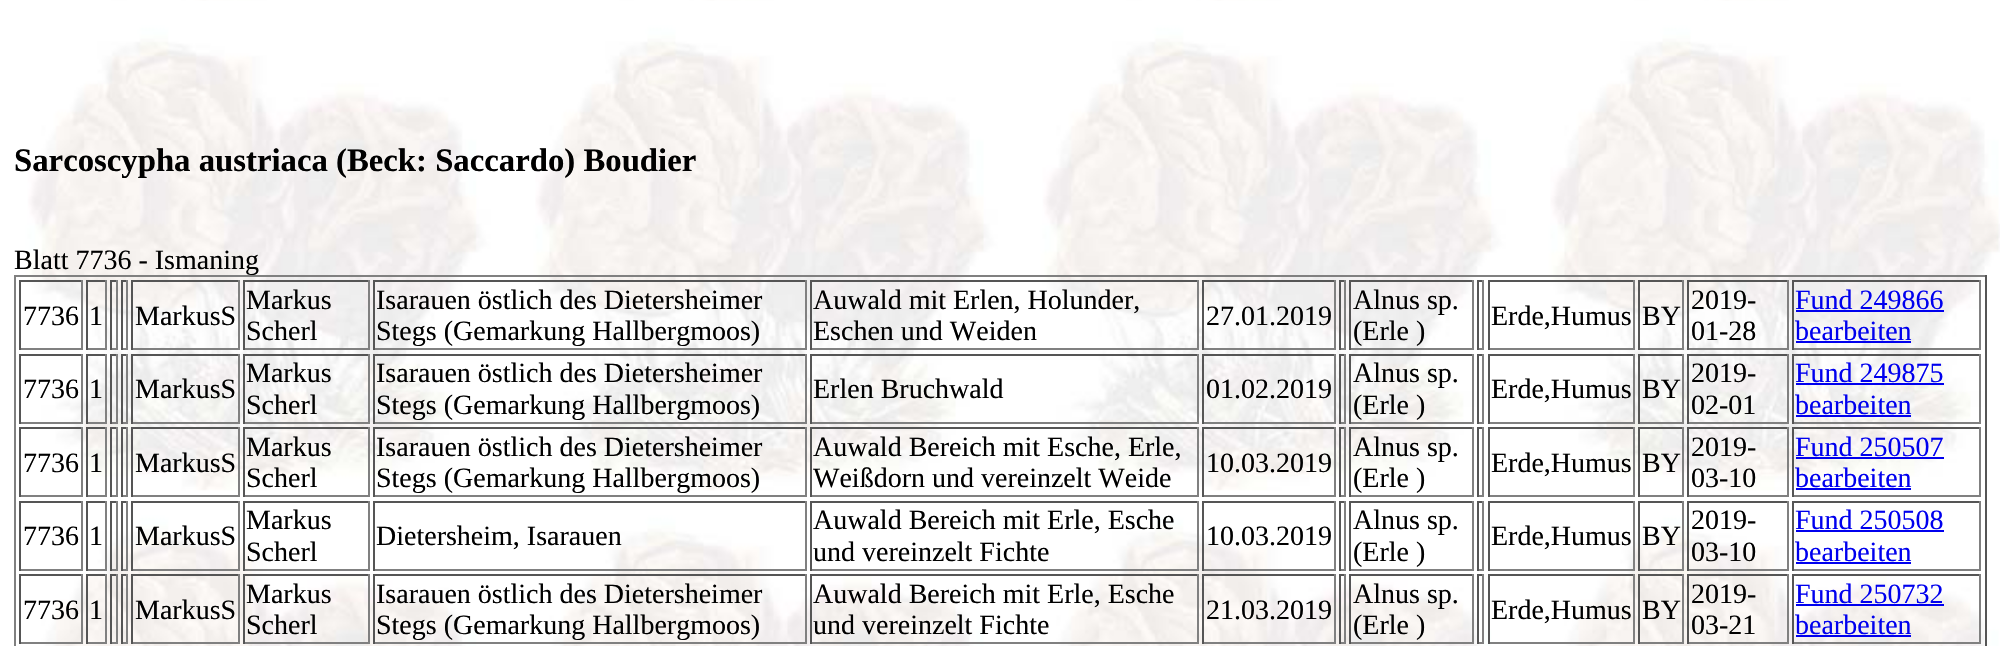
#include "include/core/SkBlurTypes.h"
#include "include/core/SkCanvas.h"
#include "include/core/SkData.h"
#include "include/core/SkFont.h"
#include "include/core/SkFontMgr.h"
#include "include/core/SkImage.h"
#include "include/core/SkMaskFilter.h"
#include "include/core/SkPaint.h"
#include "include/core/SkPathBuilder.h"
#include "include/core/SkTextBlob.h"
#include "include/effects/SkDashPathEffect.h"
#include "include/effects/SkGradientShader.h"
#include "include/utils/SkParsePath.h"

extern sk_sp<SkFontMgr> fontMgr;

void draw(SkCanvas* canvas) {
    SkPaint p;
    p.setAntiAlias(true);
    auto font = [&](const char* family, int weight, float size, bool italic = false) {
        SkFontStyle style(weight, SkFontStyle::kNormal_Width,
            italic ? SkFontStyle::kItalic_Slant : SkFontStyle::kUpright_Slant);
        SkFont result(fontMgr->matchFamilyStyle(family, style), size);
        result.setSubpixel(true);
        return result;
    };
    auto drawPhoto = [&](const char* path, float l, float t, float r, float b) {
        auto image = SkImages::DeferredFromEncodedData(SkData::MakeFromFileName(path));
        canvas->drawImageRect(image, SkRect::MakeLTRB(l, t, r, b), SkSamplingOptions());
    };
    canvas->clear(0xFFFFFFFF);
    drawPhoto("media/1.png", 0, 0, 2000, 646);
    auto font1 = font("Liberation Serif", 700, 32.75f);
    p.setColor(0xFF000000);
    canvas->drawString("Sarcoscypha austriaca (Beck: Saccardo) Boudier", 14, 171, font1, p);
    p.setColor(0xFF808080);
    canvas->drawRect(SkRect::MakeLTRB(14, 275, 1986, 277), p);
    canvas->drawRect(SkRect::MakeLTRB(14, 275, 16, 646), p);
    auto font2 = font("Liberation Serif", 400, 28);
    p.setColor(0xFF000000);
    canvas->drawString("Blatt 7736 - Ismaning", 14, 269, font2, p);
    {
        const struct { float l, t, r, b; SkColor color; } items[] = {
            {1985, 275, 1987, 646, 0xFF555555},
            {19, 280, 82, 282, 0xFF555555},
            {81, 280, 83, 350, 0xFF808080},
            {19, 348, 82, 350, 0xFF808080},
            {19, 280, 21, 350, 0xFF555555},
        };
        for (auto [l, t, r, b, color] : items) {
            p.setColor(color);
            canvas->drawRect(SkRect::MakeLTRB(l, t, r, b), p);
        }
    }
    p.setColor(0xFF000000);
    canvas->drawString("7736", 23, 325, font2, p);
    {
        const struct { float l, t, r, b; SkColor color; } items[] = {
            {86, 280, 107, 282, 0xFF555555},
            {105, 280, 107, 350, 0xFF808080},
            {86, 348, 107, 350, 0xFF808080},
            {86, 280, 88, 350, 0xFF555555},
        };
        for (auto [l, t, r, b, color] : items) {
            p.setColor(color);
            canvas->drawRect(SkRect::MakeLTRB(l, t, r, b), p);
        }
    }
    p.setColor(0xFF000000);
    canvas->drawString("1", 89, 325, font2, p);
    {
        const struct { float l, t, r, b; SkColor color; } items[] = {
            {110, 280, 117, 282, 0xFF555555},
            {116, 280, 118, 350, 0xFF808080},
            {110, 348, 117, 350, 0xFF808080},
            {110, 280, 112, 350, 0xFF555555},
            {121, 280, 128, 282, 0xFF555555},
            {126, 280, 128, 350, 0xFF808080},
            {121, 348, 128, 350, 0xFF808080},
            {121, 280, 123, 350, 0xFF555555},
            {131, 280, 240, 282, 0xFF555555},
            {238, 280, 240, 350, 0xFF808080},
            {131, 348, 240, 350, 0xFF808080},
            {131, 280, 133, 350, 0xFF555555},
        };
        for (auto [l, t, r, b, color] : items) {
            p.setColor(color);
            canvas->drawRect(SkRect::MakeLTRB(l, t, r, b), p);
        }
    }
    p.setColor(0xFF000000);
    canvas->drawString("MarkusS", 135, 325, font2, p);
    {
        const struct { float l, t, r, b; SkColor color; } items[] = {
            {243, 280, 369, 282, 0xFF555555},
            {368, 280, 370, 350, 0xFF808080},
            {243, 348, 369, 350, 0xFF808080},
            {243, 280, 245, 350, 0xFF555555},
        };
        for (auto [l, t, r, b, color] : items) {
            p.setColor(color);
            canvas->drawRect(SkRect::MakeLTRB(l, t, r, b), p);
        }
    }
    p.setColor(0xFF000000);
    canvas->drawString("Markus", 246, 309, font2, p);
    canvas->drawString("Scherl", 246, 340, font2, p);
    {
        const struct { float l, t, r, b; SkColor color; } items[] = {
            {373, 280, 807, 282, 0xFF555555},
            {805, 280, 807, 350, 0xFF808080},
            {373, 348, 807, 350, 0xFF808080},
            {373, 280, 375, 350, 0xFF555555},
        };
        for (auto [l, t, r, b, color] : items) {
            p.setColor(color);
            canvas->drawRect(SkRect::MakeLTRB(l, t, r, b), p);
        }
    }
    p.setColor(0xFF000000);
    canvas->drawString("Isarauen östlich des Dietersheimer", 376, 309, font2, p);
    canvas->drawString("Stegs (Gemarkung Hallbergmoos)", 376, 340, font2, p);
    {
        const struct { float l, t, r, b; SkColor color; } items[] = {
            {810, 280, 1199, 282, 0xFF555555},
            {1197, 280, 1199, 350, 0xFF808080},
            {810, 348, 1199, 350, 0xFF808080},
            {810, 280, 812, 350, 0xFF555555},
        };
        for (auto [l, t, r, b, color] : items) {
            p.setColor(color);
            canvas->drawRect(SkRect::MakeLTRB(l, t, r, b), p);
        }
    }
    p.setColor(0xFF000000);
    canvas->drawString("Auwald mit Erlen, Holunder,", 813, 309, font2, p);
    canvas->drawString("Eschen und Weiden", 813, 340, font2, p);
    {
        const struct { float l, t, r, b; SkColor color; } items[] = {
            {1202, 280, 1335, 282, 0xFF555555},
            {1334, 280, 1336, 350, 0xFF808080},
            {1202, 348, 1335, 350, 0xFF808080},
            {1202, 280, 1204, 350, 0xFF555555},
        };
        for (auto [l, t, r, b, color] : items) {
            p.setColor(color);
            canvas->drawRect(SkRect::MakeLTRB(l, t, r, b), p);
        }
    }
    p.setColor(0xFF000000);
    canvas->drawString("27.01.2019", 1206, 325, font2, p);
    {
        const struct { float l, t, r, b; SkColor color; } items[] = {
            {1339, 280, 1346, 282, 0xFF555555},
            {1344, 280, 1346, 350, 0xFF808080},
            {1339, 348, 1346, 350, 0xFF808080},
            {1339, 280, 1341, 350, 0xFF555555},
            {1349, 280, 1474, 282, 0xFF555555},
            {1472, 280, 1474, 350, 0xFF808080},
            {1349, 348, 1474, 350, 0xFF808080},
            {1349, 280, 1351, 350, 0xFF555555},
        };
        for (auto [l, t, r, b, color] : items) {
            p.setColor(color);
            canvas->drawRect(SkRect::MakeLTRB(l, t, r, b), p);
        }
    }
    p.setColor(0xFF000000);
    canvas->drawString("Alnus sp.", 1353, 309, font2, p);
    canvas->drawString("(Erle )", 1353, 340, font2, p);
    {
        const struct { float l, t, r, b; SkColor color; } items[] = {
            {1477, 280, 1484, 282, 0xFF555555},
            {1482, 280, 1484, 350, 0xFF808080},
            {1477, 348, 1484, 350, 0xFF808080},
            {1477, 280, 1479, 350, 0xFF555555},
            {1488, 280, 1635, 282, 0xFF555555},
            {1633, 280, 1635, 350, 0xFF808080},
            {1488, 348, 1635, 350, 0xFF808080},
            {1488, 280, 1490, 350, 0xFF555555},
        };
        for (auto [l, t, r, b, color] : items) {
            p.setColor(color);
            canvas->drawRect(SkRect::MakeLTRB(l, t, r, b), p);
        }
    }
    p.setColor(0xFF000000);
    canvas->drawString("Erde,Humus", 1491, 325, font2, p);
    {
        const struct { float l, t, r, b; SkColor color; } items[] = {
            {1638, 280, 1684, 282, 0xFF555555},
            {1682, 280, 1684, 350, 0xFF808080},
            {1638, 348, 1684, 350, 0xFF808080},
            {1638, 280, 1640, 350, 0xFF555555},
        };
        for (auto [l, t, r, b, color] : items) {
            p.setColor(color);
            canvas->drawRect(SkRect::MakeLTRB(l, t, r, b), p);
        }
    }
    p.setColor(0xFF000000);
    canvas->drawString("BY", 1642, 325, font2, p);
    {
        const struct { float l, t, r, b; SkColor color; } items[] = {
            {1687, 280, 1789, 282, 0xFF555555},
            {1787, 280, 1789, 350, 0xFF808080},
            {1687, 348, 1789, 350, 0xFF808080},
            {1687, 280, 1689, 350, 0xFF555555},
        };
        for (auto [l, t, r, b, color] : items) {
            p.setColor(color);
            canvas->drawRect(SkRect::MakeLTRB(l, t, r, b), p);
        }
    }
    p.setColor(0xFF000000);
    canvas->drawString("2019-", 1691, 309, font2, p);
    canvas->drawString("01-28", 1691, 340, font2, p);
    {
        const struct { float l, t, r, b; SkColor color; } items[] = {
            {1792, 280, 1981, 282, 0xFF555555},
            {1979, 280, 1981, 350, 0xFF808080},
            {1792, 348, 1981, 350, 0xFF808080},
            {1792, 280, 1794, 350, 0xFF555555},
        };
        for (auto [l, t, r, b, color] : items) {
            p.setColor(color);
            canvas->drawRect(SkRect::MakeLTRB(l, t, r, b), p);
        }
    }
    p.setColor(0xFF0000EE);
    canvas->drawString("Fund 249866", 1795, 309, font2, p);
    canvas->drawRect(SkRect::MakeLTRB(1796, 310, 1944, 312), p);
    canvas->drawString("bearbeiten", 1795, 340, font2, p);
    {
        const struct { float l, t, r, b; SkColor color; } items[] = {
            {1796, 341, 1911, 343, 0xFF0000EE},
            {19, 354, 82, 356, 0xFF555555},
            {81, 354, 83, 424, 0xFF808080},
            {19, 422, 82, 424, 0xFF808080},
            {19, 354, 21, 424, 0xFF555555},
        };
        for (auto [l, t, r, b, color] : items) {
            p.setColor(color);
            canvas->drawRect(SkRect::MakeLTRB(l, t, r, b), p);
        }
    }
    p.setColor(0xFF000000);
    canvas->drawString("7736", 23, 398, font2, p);
    {
        const struct { float l, t, r, b; SkColor color; } items[] = {
            {86, 354, 107, 356, 0xFF555555},
            {105, 354, 107, 424, 0xFF808080},
            {86, 422, 107, 424, 0xFF808080},
            {86, 354, 88, 424, 0xFF555555},
        };
        for (auto [l, t, r, b, color] : items) {
            p.setColor(color);
            canvas->drawRect(SkRect::MakeLTRB(l, t, r, b), p);
        }
    }
    p.setColor(0xFF000000);
    canvas->drawString("1", 89, 398, font2, p);
    {
        const struct { float l, t, r, b; SkColor color; } items[] = {
            {110, 354, 117, 356, 0xFF555555},
            {116, 354, 118, 424, 0xFF808080},
            {110, 422, 117, 424, 0xFF808080},
            {110, 354, 112, 424, 0xFF555555},
            {121, 354, 128, 356, 0xFF555555},
            {126, 354, 128, 424, 0xFF808080},
            {121, 422, 128, 424, 0xFF808080},
            {121, 354, 123, 424, 0xFF555555},
            {131, 354, 240, 356, 0xFF555555},
            {238, 354, 240, 424, 0xFF808080},
            {131, 422, 240, 424, 0xFF808080},
            {131, 354, 133, 424, 0xFF555555},
        };
        for (auto [l, t, r, b, color] : items) {
            p.setColor(color);
            canvas->drawRect(SkRect::MakeLTRB(l, t, r, b), p);
        }
    }
    p.setColor(0xFF000000);
    canvas->drawString("MarkusS", 135, 398, font2, p);
    {
        const struct { float l, t, r, b; SkColor color; } items[] = {
            {243, 354, 369, 356, 0xFF555555},
            {368, 354, 370, 424, 0xFF808080},
            {243, 422, 369, 424, 0xFF808080},
            {243, 354, 245, 424, 0xFF555555},
        };
        for (auto [l, t, r, b, color] : items) {
            p.setColor(color);
            canvas->drawRect(SkRect::MakeLTRB(l, t, r, b), p);
        }
    }
    p.setColor(0xFF000000);
    canvas->drawString("Markus", 246, 382, font2, p);
    canvas->drawString("Scherl", 246, 414, font2, p);
    {
        const struct { float l, t, r, b; SkColor color; } items[] = {
            {373, 354, 807, 356, 0xFF555555},
            {805, 354, 807, 424, 0xFF808080},
            {373, 422, 807, 424, 0xFF808080},
            {373, 354, 375, 424, 0xFF555555},
        };
        for (auto [l, t, r, b, color] : items) {
            p.setColor(color);
            canvas->drawRect(SkRect::MakeLTRB(l, t, r, b), p);
        }
    }
    p.setColor(0xFF000000);
    canvas->drawString("Isarauen östlich des Dietersheimer", 376, 382, font2, p);
    canvas->drawString("Stegs (Gemarkung Hallbergmoos)", 376, 414, font2, p);
    {
        const struct { float l, t, r, b; SkColor color; } items[] = {
            {810, 354, 1199, 356, 0xFF555555},
            {1197, 354, 1199, 424, 0xFF808080},
            {810, 422, 1199, 424, 0xFF808080},
            {810, 354, 812, 424, 0xFF555555},
        };
        for (auto [l, t, r, b, color] : items) {
            p.setColor(color);
            canvas->drawRect(SkRect::MakeLTRB(l, t, r, b), p);
        }
    }
    p.setColor(0xFF000000);
    canvas->drawString("Erlen Bruchwald", 813, 398, font2, p);
    {
        const struct { float l, t, r, b; SkColor color; } items[] = {
            {1202, 354, 1335, 356, 0xFF555555},
            {1334, 354, 1336, 424, 0xFF808080},
            {1202, 422, 1335, 424, 0xFF808080},
            {1202, 354, 1204, 424, 0xFF555555},
        };
        for (auto [l, t, r, b, color] : items) {
            p.setColor(color);
            canvas->drawRect(SkRect::MakeLTRB(l, t, r, b), p);
        }
    }
    p.setColor(0xFF000000);
    canvas->drawString("01.02.2019", 1206, 398, font2, p);
    {
        const struct { float l, t, r, b; SkColor color; } items[] = {
            {1339, 354, 1346, 356, 0xFF555555},
            {1344, 354, 1346, 424, 0xFF808080},
            {1339, 422, 1346, 424, 0xFF808080},
            {1339, 354, 1341, 424, 0xFF555555},
            {1349, 354, 1474, 356, 0xFF555555},
            {1472, 354, 1474, 424, 0xFF808080},
            {1349, 422, 1474, 424, 0xFF808080},
            {1349, 354, 1351, 424, 0xFF555555},
        };
        for (auto [l, t, r, b, color] : items) {
            p.setColor(color);
            canvas->drawRect(SkRect::MakeLTRB(l, t, r, b), p);
        }
    }
    p.setColor(0xFF000000);
    canvas->drawString("Alnus sp.", 1353, 382, font2, p);
    canvas->drawString("(Erle )", 1353, 414, font2, p);
    {
        const struct { float l, t, r, b; SkColor color; } items[] = {
            {1477, 354, 1484, 356, 0xFF555555},
            {1482, 354, 1484, 424, 0xFF808080},
            {1477, 422, 1484, 424, 0xFF808080},
            {1477, 354, 1479, 424, 0xFF555555},
            {1488, 354, 1635, 356, 0xFF555555},
            {1633, 354, 1635, 424, 0xFF808080},
            {1488, 422, 1635, 424, 0xFF808080},
            {1488, 354, 1490, 424, 0xFF555555},
        };
        for (auto [l, t, r, b, color] : items) {
            p.setColor(color);
            canvas->drawRect(SkRect::MakeLTRB(l, t, r, b), p);
        }
    }
    p.setColor(0xFF000000);
    canvas->drawString("Erde,Humus", 1491, 398, font2, p);
    {
        const struct { float l, t, r, b; SkColor color; } items[] = {
            {1638, 354, 1684, 356, 0xFF555555},
            {1682, 354, 1684, 424, 0xFF808080},
            {1638, 422, 1684, 424, 0xFF808080},
            {1638, 354, 1640, 424, 0xFF555555},
        };
        for (auto [l, t, r, b, color] : items) {
            p.setColor(color);
            canvas->drawRect(SkRect::MakeLTRB(l, t, r, b), p);
        }
    }
    p.setColor(0xFF000000);
    canvas->drawString("BY", 1642, 398, font2, p);
    {
        const struct { float l, t, r, b; SkColor color; } items[] = {
            {1687, 354, 1789, 356, 0xFF555555},
            {1787, 354, 1789, 424, 0xFF808080},
            {1687, 422, 1789, 424, 0xFF808080},
            {1687, 354, 1689, 424, 0xFF555555},
        };
        for (auto [l, t, r, b, color] : items) {
            p.setColor(color);
            canvas->drawRect(SkRect::MakeLTRB(l, t, r, b), p);
        }
    }
    p.setColor(0xFF000000);
    canvas->drawString("2019-", 1691, 382, font2, p);
    canvas->drawString("02-01", 1691, 414, font2, p);
    {
        const struct { float l, t, r, b; SkColor color; } items[] = {
            {1792, 354, 1981, 356, 0xFF555555},
            {1979, 354, 1981, 424, 0xFF808080},
            {1792, 422, 1981, 424, 0xFF808080},
            {1792, 354, 1794, 424, 0xFF555555},
        };
        for (auto [l, t, r, b, color] : items) {
            p.setColor(color);
            canvas->drawRect(SkRect::MakeLTRB(l, t, r, b), p);
        }
    }
    p.setColor(0xFF0000EE);
    canvas->drawString("Fund 249875", 1795, 382, font2, p);
    canvas->drawRect(SkRect::MakeLTRB(1796, 383, 1944, 385), p);
    canvas->drawString("bearbeiten", 1795, 414, font2, p);
    {
        const struct { float l, t, r, b; SkColor color; } items[] = {
            {1796, 415, 1911, 417, 0xFF0000EE},
            {19, 427, 82, 429, 0xFF555555},
            {81, 427, 83, 497, 0xFF808080},
            {19, 495, 82, 497, 0xFF808080},
            {19, 427, 21, 497, 0xFF555555},
        };
        for (auto [l, t, r, b, color] : items) {
            p.setColor(color);
            canvas->drawRect(SkRect::MakeLTRB(l, t, r, b), p);
        }
    }
    p.setColor(0xFF000000);
    canvas->drawString("7736", 23, 472, font2, p);
    {
        const struct { float l, t, r, b; SkColor color; } items[] = {
            {86, 427, 107, 429, 0xFF555555},
            {105, 427, 107, 497, 0xFF808080},
            {86, 495, 107, 497, 0xFF808080},
            {86, 427, 88, 497, 0xFF555555},
        };
        for (auto [l, t, r, b, color] : items) {
            p.setColor(color);
            canvas->drawRect(SkRect::MakeLTRB(l, t, r, b), p);
        }
    }
    p.setColor(0xFF000000);
    canvas->drawString("1", 89, 472, font2, p);
    {
        const struct { float l, t, r, b; SkColor color; } items[] = {
            {110, 427, 117, 429, 0xFF555555},
            {116, 427, 118, 497, 0xFF808080},
            {110, 495, 117, 497, 0xFF808080},
            {110, 427, 112, 497, 0xFF555555},
            {121, 427, 128, 429, 0xFF555555},
            {126, 427, 128, 497, 0xFF808080},
            {121, 495, 128, 497, 0xFF808080},
            {121, 427, 123, 497, 0xFF555555},
            {131, 427, 240, 429, 0xFF555555},
            {238, 427, 240, 497, 0xFF808080},
            {131, 495, 240, 497, 0xFF808080},
            {131, 427, 133, 497, 0xFF555555},
        };
        for (auto [l, t, r, b, color] : items) {
            p.setColor(color);
            canvas->drawRect(SkRect::MakeLTRB(l, t, r, b), p);
        }
    }
    p.setColor(0xFF000000);
    canvas->drawString("MarkusS", 135, 472, font2, p);
    {
        const struct { float l, t, r, b; SkColor color; } items[] = {
            {243, 427, 369, 429, 0xFF555555},
            {368, 427, 370, 497, 0xFF808080},
            {243, 495, 369, 497, 0xFF808080},
            {243, 427, 245, 497, 0xFF555555},
        };
        for (auto [l, t, r, b, color] : items) {
            p.setColor(color);
            canvas->drawRect(SkRect::MakeLTRB(l, t, r, b), p);
        }
    }
    p.setColor(0xFF000000);
    canvas->drawString("Markus", 246, 456, font2, p);
    canvas->drawString("Scherl", 246, 487, font2, p);
    {
        const struct { float l, t, r, b; SkColor color; } items[] = {
            {373, 427, 807, 429, 0xFF555555},
            {805, 427, 807, 497, 0xFF808080},
            {373, 495, 807, 497, 0xFF808080},
            {373, 427, 375, 497, 0xFF555555},
        };
        for (auto [l, t, r, b, color] : items) {
            p.setColor(color);
            canvas->drawRect(SkRect::MakeLTRB(l, t, r, b), p);
        }
    }
    p.setColor(0xFF000000);
    canvas->drawString("Isarauen östlich des Dietersheimer", 376, 456, font2, p);
    canvas->drawString("Stegs (Gemarkung Hallbergmoos)", 376, 487, font2, p);
    {
        const struct { float l, t, r, b; SkColor color; } items[] = {
            {810, 427, 1199, 429, 0xFF555555},
            {1197, 427, 1199, 497, 0xFF808080},
            {810, 495, 1199, 497, 0xFF808080},
            {810, 427, 812, 497, 0xFF555555},
        };
        for (auto [l, t, r, b, color] : items) {
            p.setColor(color);
            canvas->drawRect(SkRect::MakeLTRB(l, t, r, b), p);
        }
    }
    p.setColor(0xFF000000);
    canvas->drawString("Auwald Bereich mit Esche, Erle,", 813, 456, font2, p);
    canvas->drawString("Weißdorn und vereinzelt Weide", 813, 487, font2, p);
    {
        const struct { float l, t, r, b; SkColor color; } items[] = {
            {1202, 427, 1335, 429, 0xFF555555},
            {1334, 427, 1336, 497, 0xFF808080},
            {1202, 495, 1335, 497, 0xFF808080},
            {1202, 427, 1204, 497, 0xFF555555},
        };
        for (auto [l, t, r, b, color] : items) {
            p.setColor(color);
            canvas->drawRect(SkRect::MakeLTRB(l, t, r, b), p);
        }
    }
    p.setColor(0xFF000000);
    canvas->drawString("10.03.2019", 1206, 472, font2, p);
    {
        const struct { float l, t, r, b; SkColor color; } items[] = {
            {1339, 427, 1346, 429, 0xFF555555},
            {1344, 427, 1346, 497, 0xFF808080},
            {1339, 495, 1346, 497, 0xFF808080},
            {1339, 427, 1341, 497, 0xFF555555},
            {1349, 427, 1474, 429, 0xFF555555},
            {1472, 427, 1474, 497, 0xFF808080},
            {1349, 495, 1474, 497, 0xFF808080},
            {1349, 427, 1351, 497, 0xFF555555},
        };
        for (auto [l, t, r, b, color] : items) {
            p.setColor(color);
            canvas->drawRect(SkRect::MakeLTRB(l, t, r, b), p);
        }
    }
    p.setColor(0xFF000000);
    canvas->drawString("Alnus sp.", 1353, 456, font2, p);
    canvas->drawString("(Erle )", 1353, 487, font2, p);
    {
        const struct { float l, t, r, b; SkColor color; } items[] = {
            {1477, 427, 1484, 429, 0xFF555555},
            {1482, 427, 1484, 497, 0xFF808080},
            {1477, 495, 1484, 497, 0xFF808080},
            {1477, 427, 1479, 497, 0xFF555555},
            {1488, 427, 1635, 429, 0xFF555555},
            {1633, 427, 1635, 497, 0xFF808080},
            {1488, 495, 1635, 497, 0xFF808080},
            {1488, 427, 1490, 497, 0xFF555555},
        };
        for (auto [l, t, r, b, color] : items) {
            p.setColor(color);
            canvas->drawRect(SkRect::MakeLTRB(l, t, r, b), p);
        }
    }
    p.setColor(0xFF000000);
    canvas->drawString("Erde,Humus", 1491, 472, font2, p);
    {
        const struct { float l, t, r, b; SkColor color; } items[] = {
            {1638, 427, 1684, 429, 0xFF555555},
            {1682, 427, 1684, 497, 0xFF808080},
            {1638, 495, 1684, 497, 0xFF808080},
            {1638, 427, 1640, 497, 0xFF555555},
        };
        for (auto [l, t, r, b, color] : items) {
            p.setColor(color);
            canvas->drawRect(SkRect::MakeLTRB(l, t, r, b), p);
        }
    }
    p.setColor(0xFF000000);
    canvas->drawString("BY", 1642, 472, font2, p);
    {
        const struct { float l, t, r, b; SkColor color; } items[] = {
            {1687, 427, 1789, 429, 0xFF555555},
            {1787, 427, 1789, 497, 0xFF808080},
            {1687, 495, 1789, 497, 0xFF808080},
            {1687, 427, 1689, 497, 0xFF555555},
        };
        for (auto [l, t, r, b, color] : items) {
            p.setColor(color);
            canvas->drawRect(SkRect::MakeLTRB(l, t, r, b), p);
        }
    }
    p.setColor(0xFF000000);
    canvas->drawString("2019-", 1691, 456, font2, p);
    canvas->drawString("03-10", 1691, 487, font2, p);
    {
        const struct { float l, t, r, b; SkColor color; } items[] = {
            {1792, 427, 1981, 429, 0xFF555555},
            {1979, 427, 1981, 497, 0xFF808080},
            {1792, 495, 1981, 497, 0xFF808080},
            {1792, 427, 1794, 497, 0xFF555555},
        };
        for (auto [l, t, r, b, color] : items) {
            p.setColor(color);
            canvas->drawRect(SkRect::MakeLTRB(l, t, r, b), p);
        }
    }
    p.setColor(0xFF0000EE);
    canvas->drawString("Fund 250507", 1795, 456, font2, p);
    canvas->drawRect(SkRect::MakeLTRB(1796, 457, 1944, 459), p);
    canvas->drawString("bearbeiten", 1795, 487, font2, p);
    {
        const struct { float l, t, r, b; SkColor color; } items[] = {
            {1796, 488, 1911, 490, 0xFF0000EE},
            {19, 501, 82, 503, 0xFF555555},
            {81, 501, 83, 571, 0xFF808080},
            {19, 569, 82, 571, 0xFF808080},
            {19, 501, 21, 571, 0xFF555555},
        };
        for (auto [l, t, r, b, color] : items) {
            p.setColor(color);
            canvas->drawRect(SkRect::MakeLTRB(l, t, r, b), p);
        }
    }
    p.setColor(0xFF000000);
    canvas->drawString("7736", 23, 545, font2, p);
    {
        const struct { float l, t, r, b; SkColor color; } items[] = {
            {86, 501, 107, 503, 0xFF555555},
            {105, 501, 107, 571, 0xFF808080},
            {86, 569, 107, 571, 0xFF808080},
            {86, 501, 88, 571, 0xFF555555},
        };
        for (auto [l, t, r, b, color] : items) {
            p.setColor(color);
            canvas->drawRect(SkRect::MakeLTRB(l, t, r, b), p);
        }
    }
    p.setColor(0xFF000000);
    canvas->drawString("1", 89, 545, font2, p);
    {
        const struct { float l, t, r, b; SkColor color; } items[] = {
            {110, 501, 117, 503, 0xFF555555},
            {116, 501, 118, 571, 0xFF808080},
            {110, 569, 117, 571, 0xFF808080},
            {110, 501, 112, 571, 0xFF555555},
            {121, 501, 128, 503, 0xFF555555},
            {126, 501, 128, 571, 0xFF808080},
            {121, 569, 128, 571, 0xFF808080},
            {121, 501, 123, 571, 0xFF555555},
            {131, 501, 240, 503, 0xFF555555},
            {238, 501, 240, 571, 0xFF808080},
            {131, 569, 240, 571, 0xFF808080},
            {131, 501, 133, 571, 0xFF555555},
        };
        for (auto [l, t, r, b, color] : items) {
            p.setColor(color);
            canvas->drawRect(SkRect::MakeLTRB(l, t, r, b), p);
        }
    }
    p.setColor(0xFF000000);
    canvas->drawString("MarkusS", 135, 545, font2, p);
    {
        const struct { float l, t, r, b; SkColor color; } items[] = {
            {243, 501, 369, 503, 0xFF555555},
            {368, 501, 370, 571, 0xFF808080},
            {243, 569, 369, 571, 0xFF808080},
            {243, 501, 245, 571, 0xFF555555},
        };
        for (auto [l, t, r, b, color] : items) {
            p.setColor(color);
            canvas->drawRect(SkRect::MakeLTRB(l, t, r, b), p);
        }
    }
    p.setColor(0xFF000000);
    canvas->drawString("Markus", 246, 529, font2, p);
    canvas->drawString("Scherl", 246, 561, font2, p);
    {
        const struct { float l, t, r, b; SkColor color; } items[] = {
            {373, 501, 807, 503, 0xFF555555},
            {805, 501, 807, 571, 0xFF808080},
            {373, 569, 807, 571, 0xFF808080},
            {373, 501, 375, 571, 0xFF555555},
        };
        for (auto [l, t, r, b, color] : items) {
            p.setColor(color);
            canvas->drawRect(SkRect::MakeLTRB(l, t, r, b), p);
        }
    }
    p.setColor(0xFF000000);
    canvas->drawString("Dietersheim, Isarauen", 376, 545, font2, p);
    {
        const struct { float l, t, r, b; SkColor color; } items[] = {
            {810, 501, 1199, 503, 0xFF555555},
            {1197, 501, 1199, 571, 0xFF808080},
            {810, 569, 1199, 571, 0xFF808080},
            {810, 501, 812, 571, 0xFF555555},
        };
        for (auto [l, t, r, b, color] : items) {
            p.setColor(color);
            canvas->drawRect(SkRect::MakeLTRB(l, t, r, b), p);
        }
    }
    p.setColor(0xFF000000);
    canvas->drawString("Auwald Bereich mit Erle, Esche", 813, 529, font2, p);
    canvas->drawString("und vereinzelt Fichte", 813, 561, font2, p);
    {
        const struct { float l, t, r, b; SkColor color; } items[] = {
            {1202, 501, 1335, 503, 0xFF555555},
            {1334, 501, 1336, 571, 0xFF808080},
            {1202, 569, 1335, 571, 0xFF808080},
            {1202, 501, 1204, 571, 0xFF555555},
        };
        for (auto [l, t, r, b, color] : items) {
            p.setColor(color);
            canvas->drawRect(SkRect::MakeLTRB(l, t, r, b), p);
        }
    }
    p.setColor(0xFF000000);
    canvas->drawString("10.03.2019", 1206, 545, font2, p);
    {
        const struct { float l, t, r, b; SkColor color; } items[] = {
            {1339, 501, 1346, 503, 0xFF555555},
            {1344, 501, 1346, 571, 0xFF808080},
            {1339, 569, 1346, 571, 0xFF808080},
            {1339, 501, 1341, 571, 0xFF555555},
            {1349, 501, 1474, 503, 0xFF555555},
            {1472, 501, 1474, 571, 0xFF808080},
            {1349, 569, 1474, 571, 0xFF808080},
            {1349, 501, 1351, 571, 0xFF555555},
        };
        for (auto [l, t, r, b, color] : items) {
            p.setColor(color);
            canvas->drawRect(SkRect::MakeLTRB(l, t, r, b), p);
        }
    }
    p.setColor(0xFF000000);
    canvas->drawString("Alnus sp.", 1353, 529, font2, p);
    canvas->drawString("(Erle )", 1353, 561, font2, p);
    {
        const struct { float l, t, r, b; SkColor color; } items[] = {
            {1477, 501, 1484, 503, 0xFF555555},
            {1482, 501, 1484, 571, 0xFF808080},
            {1477, 569, 1484, 571, 0xFF808080},
            {1477, 501, 1479, 571, 0xFF555555},
            {1488, 501, 1635, 503, 0xFF555555},
            {1633, 501, 1635, 571, 0xFF808080},
            {1488, 569, 1635, 571, 0xFF808080},
            {1488, 501, 1490, 571, 0xFF555555},
        };
        for (auto [l, t, r, b, color] : items) {
            p.setColor(color);
            canvas->drawRect(SkRect::MakeLTRB(l, t, r, b), p);
        }
    }
    p.setColor(0xFF000000);
    canvas->drawString("Erde,Humus", 1491, 545, font2, p);
    {
        const struct { float l, t, r, b; SkColor color; } items[] = {
            {1638, 501, 1684, 503, 0xFF555555},
            {1682, 501, 1684, 571, 0xFF808080},
            {1638, 569, 1684, 571, 0xFF808080},
            {1638, 501, 1640, 571, 0xFF555555},
        };
        for (auto [l, t, r, b, color] : items) {
            p.setColor(color);
            canvas->drawRect(SkRect::MakeLTRB(l, t, r, b), p);
        }
    }
    p.setColor(0xFF000000);
    canvas->drawString("BY", 1642, 545, font2, p);
    {
        const struct { float l, t, r, b; SkColor color; } items[] = {
            {1687, 501, 1789, 503, 0xFF555555},
            {1787, 501, 1789, 571, 0xFF808080},
            {1687, 569, 1789, 571, 0xFF808080},
            {1687, 501, 1689, 571, 0xFF555555},
        };
        for (auto [l, t, r, b, color] : items) {
            p.setColor(color);
            canvas->drawRect(SkRect::MakeLTRB(l, t, r, b), p);
        }
    }
    p.setColor(0xFF000000);
    canvas->drawString("2019-", 1691, 529, font2, p);
    canvas->drawString("03-10", 1691, 561, font2, p);
    {
        const struct { float l, t, r, b; SkColor color; } items[] = {
            {1792, 501, 1981, 503, 0xFF555555},
            {1979, 501, 1981, 571, 0xFF808080},
            {1792, 569, 1981, 571, 0xFF808080},
            {1792, 501, 1794, 571, 0xFF555555},
        };
        for (auto [l, t, r, b, color] : items) {
            p.setColor(color);
            canvas->drawRect(SkRect::MakeLTRB(l, t, r, b), p);
        }
    }
    p.setColor(0xFF0000EE);
    canvas->drawString("Fund 250508", 1795, 529, font2, p);
    canvas->drawRect(SkRect::MakeLTRB(1796, 530, 1944, 532), p);
    canvas->drawString("bearbeiten", 1795, 561, font2, p);
    {
        const struct { float l, t, r, b; SkColor color; } items[] = {
            {1796, 562, 1911, 564, 0xFF0000EE},
            {19, 574, 82, 576, 0xFF555555},
            {81, 574, 83, 644, 0xFF808080},
            {19, 642, 82, 644, 0xFF808080},
            {19, 574, 21, 644, 0xFF555555},
        };
        for (auto [l, t, r, b, color] : items) {
            p.setColor(color);
            canvas->drawRect(SkRect::MakeLTRB(l, t, r, b), p);
        }
    }
    p.setColor(0xFF000000);
    canvas->drawString("7736", 23, 619, font2, p);
    {
        const struct { float l, t, r, b; SkColor color; } items[] = {
            {86, 574, 107, 576, 0xFF555555},
            {105, 574, 107, 644, 0xFF808080},
            {86, 642, 107, 644, 0xFF808080},
            {86, 574, 88, 644, 0xFF555555},
        };
        for (auto [l, t, r, b, color] : items) {
            p.setColor(color);
            canvas->drawRect(SkRect::MakeLTRB(l, t, r, b), p);
        }
    }
    p.setColor(0xFF000000);
    canvas->drawString("1", 89, 619, font2, p);
    {
        const struct { float l, t, r, b; SkColor color; } items[] = {
            {110, 574, 117, 576, 0xFF555555},
            {116, 574, 118, 644, 0xFF808080},
            {110, 642, 117, 644, 0xFF808080},
            {110, 574, 112, 644, 0xFF555555},
            {121, 574, 128, 576, 0xFF555555},
            {126, 574, 128, 644, 0xFF808080},
            {121, 642, 128, 644, 0xFF808080},
            {121, 574, 123, 644, 0xFF555555},
            {131, 574, 240, 576, 0xFF555555},
            {238, 574, 240, 644, 0xFF808080},
            {131, 642, 240, 644, 0xFF808080},
            {131, 574, 133, 644, 0xFF555555},
        };
        for (auto [l, t, r, b, color] : items) {
            p.setColor(color);
            canvas->drawRect(SkRect::MakeLTRB(l, t, r, b), p);
        }
    }
    p.setColor(0xFF000000);
    canvas->drawString("MarkusS", 135, 619, font2, p);
    {
        const struct { float l, t, r, b; SkColor color; } items[] = {
            {243, 574, 369, 576, 0xFF555555},
            {368, 574, 370, 644, 0xFF808080},
            {243, 642, 369, 644, 0xFF808080},
            {243, 574, 245, 644, 0xFF555555},
        };
        for (auto [l, t, r, b, color] : items) {
            p.setColor(color);
            canvas->drawRect(SkRect::MakeLTRB(l, t, r, b), p);
        }
    }
    p.setColor(0xFF000000);
    canvas->drawString("Markus", 246, 603, font2, p);
    canvas->drawString("Scherl", 246, 634, font2, p);
    {
        const struct { float l, t, r, b; SkColor color; } items[] = {
            {373, 574, 807, 576, 0xFF555555},
            {805, 574, 807, 644, 0xFF808080},
            {373, 642, 807, 644, 0xFF808080},
            {373, 574, 375, 644, 0xFF555555},
        };
        for (auto [l, t, r, b, color] : items) {
            p.setColor(color);
            canvas->drawRect(SkRect::MakeLTRB(l, t, r, b), p);
        }
    }
    p.setColor(0xFF000000);
    canvas->drawString("Isarauen östlich des Dietersheimer", 376, 603, font2, p);
    canvas->drawString("Stegs (Gemarkung Hallbergmoos)", 376, 634, font2, p);
    {
        const struct { float l, t, r, b; SkColor color; } items[] = {
            {810, 574, 1199, 576, 0xFF555555},
            {1197, 574, 1199, 644, 0xFF808080},
            {810, 642, 1199, 644, 0xFF808080},
            {810, 574, 812, 644, 0xFF555555},
        };
        for (auto [l, t, r, b, color] : items) {
            p.setColor(color);
            canvas->drawRect(SkRect::MakeLTRB(l, t, r, b), p);
        }
    }
    p.setColor(0xFF000000);
    canvas->drawString("Auwald Bereich mit Erle, Esche", 813, 603, font2, p);
    canvas->drawString("und vereinzelt Fichte", 813, 634, font2, p);
    {
        const struct { float l, t, r, b; SkColor color; } items[] = {
            {1202, 574, 1335, 576, 0xFF555555},
            {1334, 574, 1336, 644, 0xFF808080},
            {1202, 642, 1335, 644, 0xFF808080},
            {1202, 574, 1204, 644, 0xFF555555},
        };
        for (auto [l, t, r, b, color] : items) {
            p.setColor(color);
            canvas->drawRect(SkRect::MakeLTRB(l, t, r, b), p);
        }
    }
    p.setColor(0xFF000000);
    canvas->drawString("21.03.2019", 1206, 619, font2, p);
    {
        const struct { float l, t, r, b; SkColor color; } items[] = {
            {1339, 574, 1346, 576, 0xFF555555},
            {1344, 574, 1346, 644, 0xFF808080},
            {1339, 642, 1346, 644, 0xFF808080},
            {1339, 574, 1341, 644, 0xFF555555},
            {1349, 574, 1474, 576, 0xFF555555},
            {1472, 574, 1474, 644, 0xFF808080},
            {1349, 642, 1474, 644, 0xFF808080},
            {1349, 574, 1351, 644, 0xFF555555},
        };
        for (auto [l, t, r, b, color] : items) {
            p.setColor(color);
            canvas->drawRect(SkRect::MakeLTRB(l, t, r, b), p);
        }
    }
    p.setColor(0xFF000000);
    canvas->drawString("Alnus sp.", 1353, 603, font2, p);
    canvas->drawString("(Erle )", 1353, 634, font2, p);
    {
        const struct { float l, t, r, b; SkColor color; } items[] = {
            {1477, 574, 1484, 576, 0xFF555555},
            {1482, 574, 1484, 644, 0xFF808080},
            {1477, 642, 1484, 644, 0xFF808080},
            {1477, 574, 1479, 644, 0xFF555555},
            {1488, 574, 1635, 576, 0xFF555555},
            {1633, 574, 1635, 644, 0xFF808080},
            {1488, 642, 1635, 644, 0xFF808080},
            {1488, 574, 1490, 644, 0xFF555555},
        };
        for (auto [l, t, r, b, color] : items) {
            p.setColor(color);
            canvas->drawRect(SkRect::MakeLTRB(l, t, r, b), p);
        }
    }
    p.setColor(0xFF000000);
    canvas->drawString("Erde,Humus", 1491, 619, font2, p);
    {
        const struct { float l, t, r, b; SkColor color; } items[] = {
            {1638, 574, 1684, 576, 0xFF555555},
            {1682, 574, 1684, 644, 0xFF808080},
            {1638, 642, 1684, 644, 0xFF808080},
            {1638, 574, 1640, 644, 0xFF555555},
        };
        for (auto [l, t, r, b, color] : items) {
            p.setColor(color);
            canvas->drawRect(SkRect::MakeLTRB(l, t, r, b), p);
        }
    }
    p.setColor(0xFF000000);
    canvas->drawString("BY", 1642, 619, font2, p);
    {
        const struct { float l, t, r, b; SkColor color; } items[] = {
            {1687, 574, 1789, 576, 0xFF555555},
            {1787, 574, 1789, 644, 0xFF808080},
            {1687, 642, 1789, 644, 0xFF808080},
            {1687, 574, 1689, 644, 0xFF555555},
        };
        for (auto [l, t, r, b, color] : items) {
            p.setColor(color);
            canvas->drawRect(SkRect::MakeLTRB(l, t, r, b), p);
        }
    }
    p.setColor(0xFF000000);
    canvas->drawString("2019-", 1691, 603, font2, p);
    canvas->drawString("03-21", 1691, 634, font2, p);
    {
        const struct { float l, t, r, b; SkColor color; } items[] = {
            {1792, 574, 1981, 576, 0xFF555555},
            {1979, 574, 1981, 644, 0xFF808080},
            {1792, 642, 1981, 644, 0xFF808080},
            {1792, 574, 1794, 644, 0xFF555555},
        };
        for (auto [l, t, r, b, color] : items) {
            p.setColor(color);
            canvas->drawRect(SkRect::MakeLTRB(l, t, r, b), p);
        }
    }
    p.setColor(0xFF0000EE);
    canvas->drawString("Fund 250732", 1795, 603, font2, p);
    canvas->drawRect(SkRect::MakeLTRB(1796, 604, 1944, 606), p);
    canvas->drawString("bearbeiten", 1795, 634, font2, p);
    canvas->drawRect(SkRect::MakeLTRB(1796, 635, 1911, 637), p);
}
